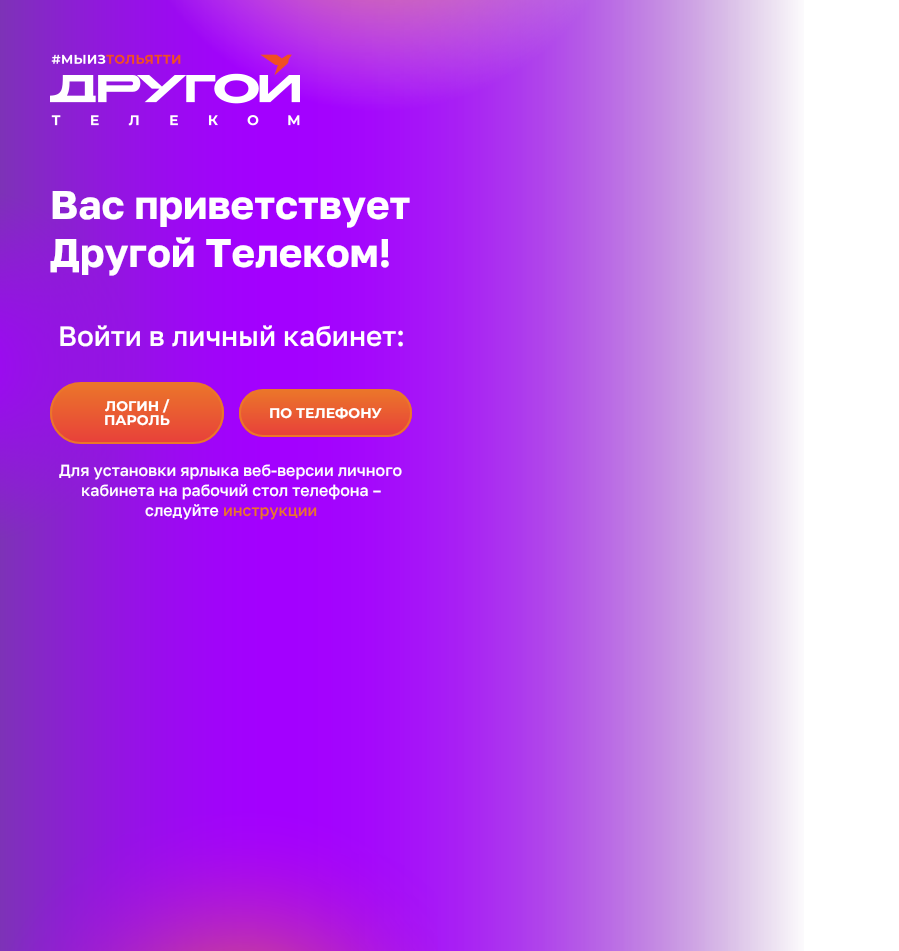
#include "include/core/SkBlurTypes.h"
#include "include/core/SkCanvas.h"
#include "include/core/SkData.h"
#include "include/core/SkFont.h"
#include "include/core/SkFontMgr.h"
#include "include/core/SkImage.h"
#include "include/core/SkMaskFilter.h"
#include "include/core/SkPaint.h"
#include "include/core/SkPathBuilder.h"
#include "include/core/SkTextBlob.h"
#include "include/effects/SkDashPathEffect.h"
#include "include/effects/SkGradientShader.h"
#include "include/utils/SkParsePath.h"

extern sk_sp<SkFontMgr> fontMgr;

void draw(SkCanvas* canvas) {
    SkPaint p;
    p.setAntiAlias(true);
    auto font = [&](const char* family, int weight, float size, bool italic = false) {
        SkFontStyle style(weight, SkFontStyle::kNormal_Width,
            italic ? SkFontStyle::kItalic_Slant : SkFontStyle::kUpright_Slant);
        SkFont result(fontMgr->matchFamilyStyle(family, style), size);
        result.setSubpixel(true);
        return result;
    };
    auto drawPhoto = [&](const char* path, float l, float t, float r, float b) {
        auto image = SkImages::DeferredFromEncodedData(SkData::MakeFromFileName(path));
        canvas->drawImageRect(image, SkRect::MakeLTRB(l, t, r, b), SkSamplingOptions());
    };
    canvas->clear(0xFFFFFFFF);
    drawPhoto("media/1.png", 0, 0, 804, 951);
    drawPhoto("media/2.png", 50, 54, 300, 126);
    auto font1 = font("Golos Text", 700, 40);
    p.setColor(0xFFFFFFFF);
    canvas->drawString("Вас приветствует", 50, 219, font1, p);
    canvas->drawString("Другой Телеком!", 50, 267, font1, p);
    auto font2 = font("Golos Text", 500, 28);
    canvas->drawString("Войти в личный кабинет:", 58, 346, font2, p);
    canvas->save();
    canvas->clipPath(SkPathBuilder().moveTo(81, 382).lineTo(193, 382).cubicTo(210, 382, 224, 396, 224, 413).cubicTo(224, 430, 210, 444, 193, 444).lineTo(81, 444).cubicTo(64, 444, 50, 430, 50, 413).cubicTo(50, 396, 64, 382, 81, 382).close().detach(), true);
    {
        const SkColor colors[] = {0xFFEB752A, 0xFFE8413A};
        const float stops[] = {0, 1};
        const SkPoint ends[] = {{137, 384}, {137, 442}};
        p.setShader(SkGradientShader::MakeLinear(ends, colors, stops, 2, SkTileMode::kClamp));
        p.setAlpha(255);
    }
    canvas->drawRect(SkRect::MakeLTRB(50, 384, 224, 442), p);
    canvas->restore();
    p.setStyle(SkPaint::kStroke_Style);
    p.setStrokeWidth(2);
    p.setShader(nullptr);
    p.setColor(0xFFEB752A);
    canvas->drawRoundRect(SkRect::MakeLTRB(51, 383, 223, 443), 30, 30, p);
    auto font3 = font("Montserrat", 700, 14);
    p.setStyle(SkPaint::kFill_Style);
    p.setColor(0xFFFFFFFF);
    canvas->drawString("ЛОГИН /", 105, 411, font3, p);
    canvas->drawString("ПАРОЛЬ", 104, 425, font3, p);
    canvas->save();
    canvas->clipPath(SkPathBuilder().moveTo(263, 389).lineTo(388, 389).cubicTo(401.5f, 389, 412, 399.5f, 412, 413).cubicTo(412, 426.5f, 401.5f, 437, 388, 437).lineTo(263, 437).cubicTo(249.5f, 437, 239, 426.5f, 239, 413).cubicTo(239, 399.5f, 249.5f, 389, 263, 389).close().detach(), true);
    {
        const SkColor colors[] = {0xFFEB752A, 0xFFE8413A};
        const float stops[] = {0, 1};
        const SkPoint ends[] = {{326, 391}, {326, 435}};
        p.setShader(SkGradientShader::MakeLinear(ends, colors, stops, 2, SkTileMode::kClamp));
        p.setAlpha(255);
    }
    canvas->drawRect(SkRect::MakeLTRB(239, 391, 412, 435), p);
    canvas->restore();
    p.setStyle(SkPaint::kStroke_Style);
    p.setShader(nullptr);
    p.setColor(0xFFEB752A);
    canvas->drawRoundRect(SkRect::MakeLTRB(240, 390, 411, 436), 23, 23, p);
    p.setStyle(SkPaint::kFill_Style);
    p.setColor(0xFFFFFFFF);
    canvas->drawString("ПО ТЕЛЕФОНУ", 269, 418, font3, p);
    auto font4 = font("Golos Text", 500, 16);
    {
        const struct { const char* s; float x, y; } items[] = {
            {"Для установки ярлыка веб-версии личного", 59, 476},
            {"кабинета на рабочий стол телефона –", 81, 496},
            {"следуйте", 145, 516},
        };
        for (auto [s, x, y] : items) {
            canvas->drawString(s, x, y, font4, p);
        }
    }
    p.setColor(0xFFEB752A);
    canvas->drawString("инструкции", 223, 516, font4, p);
}
